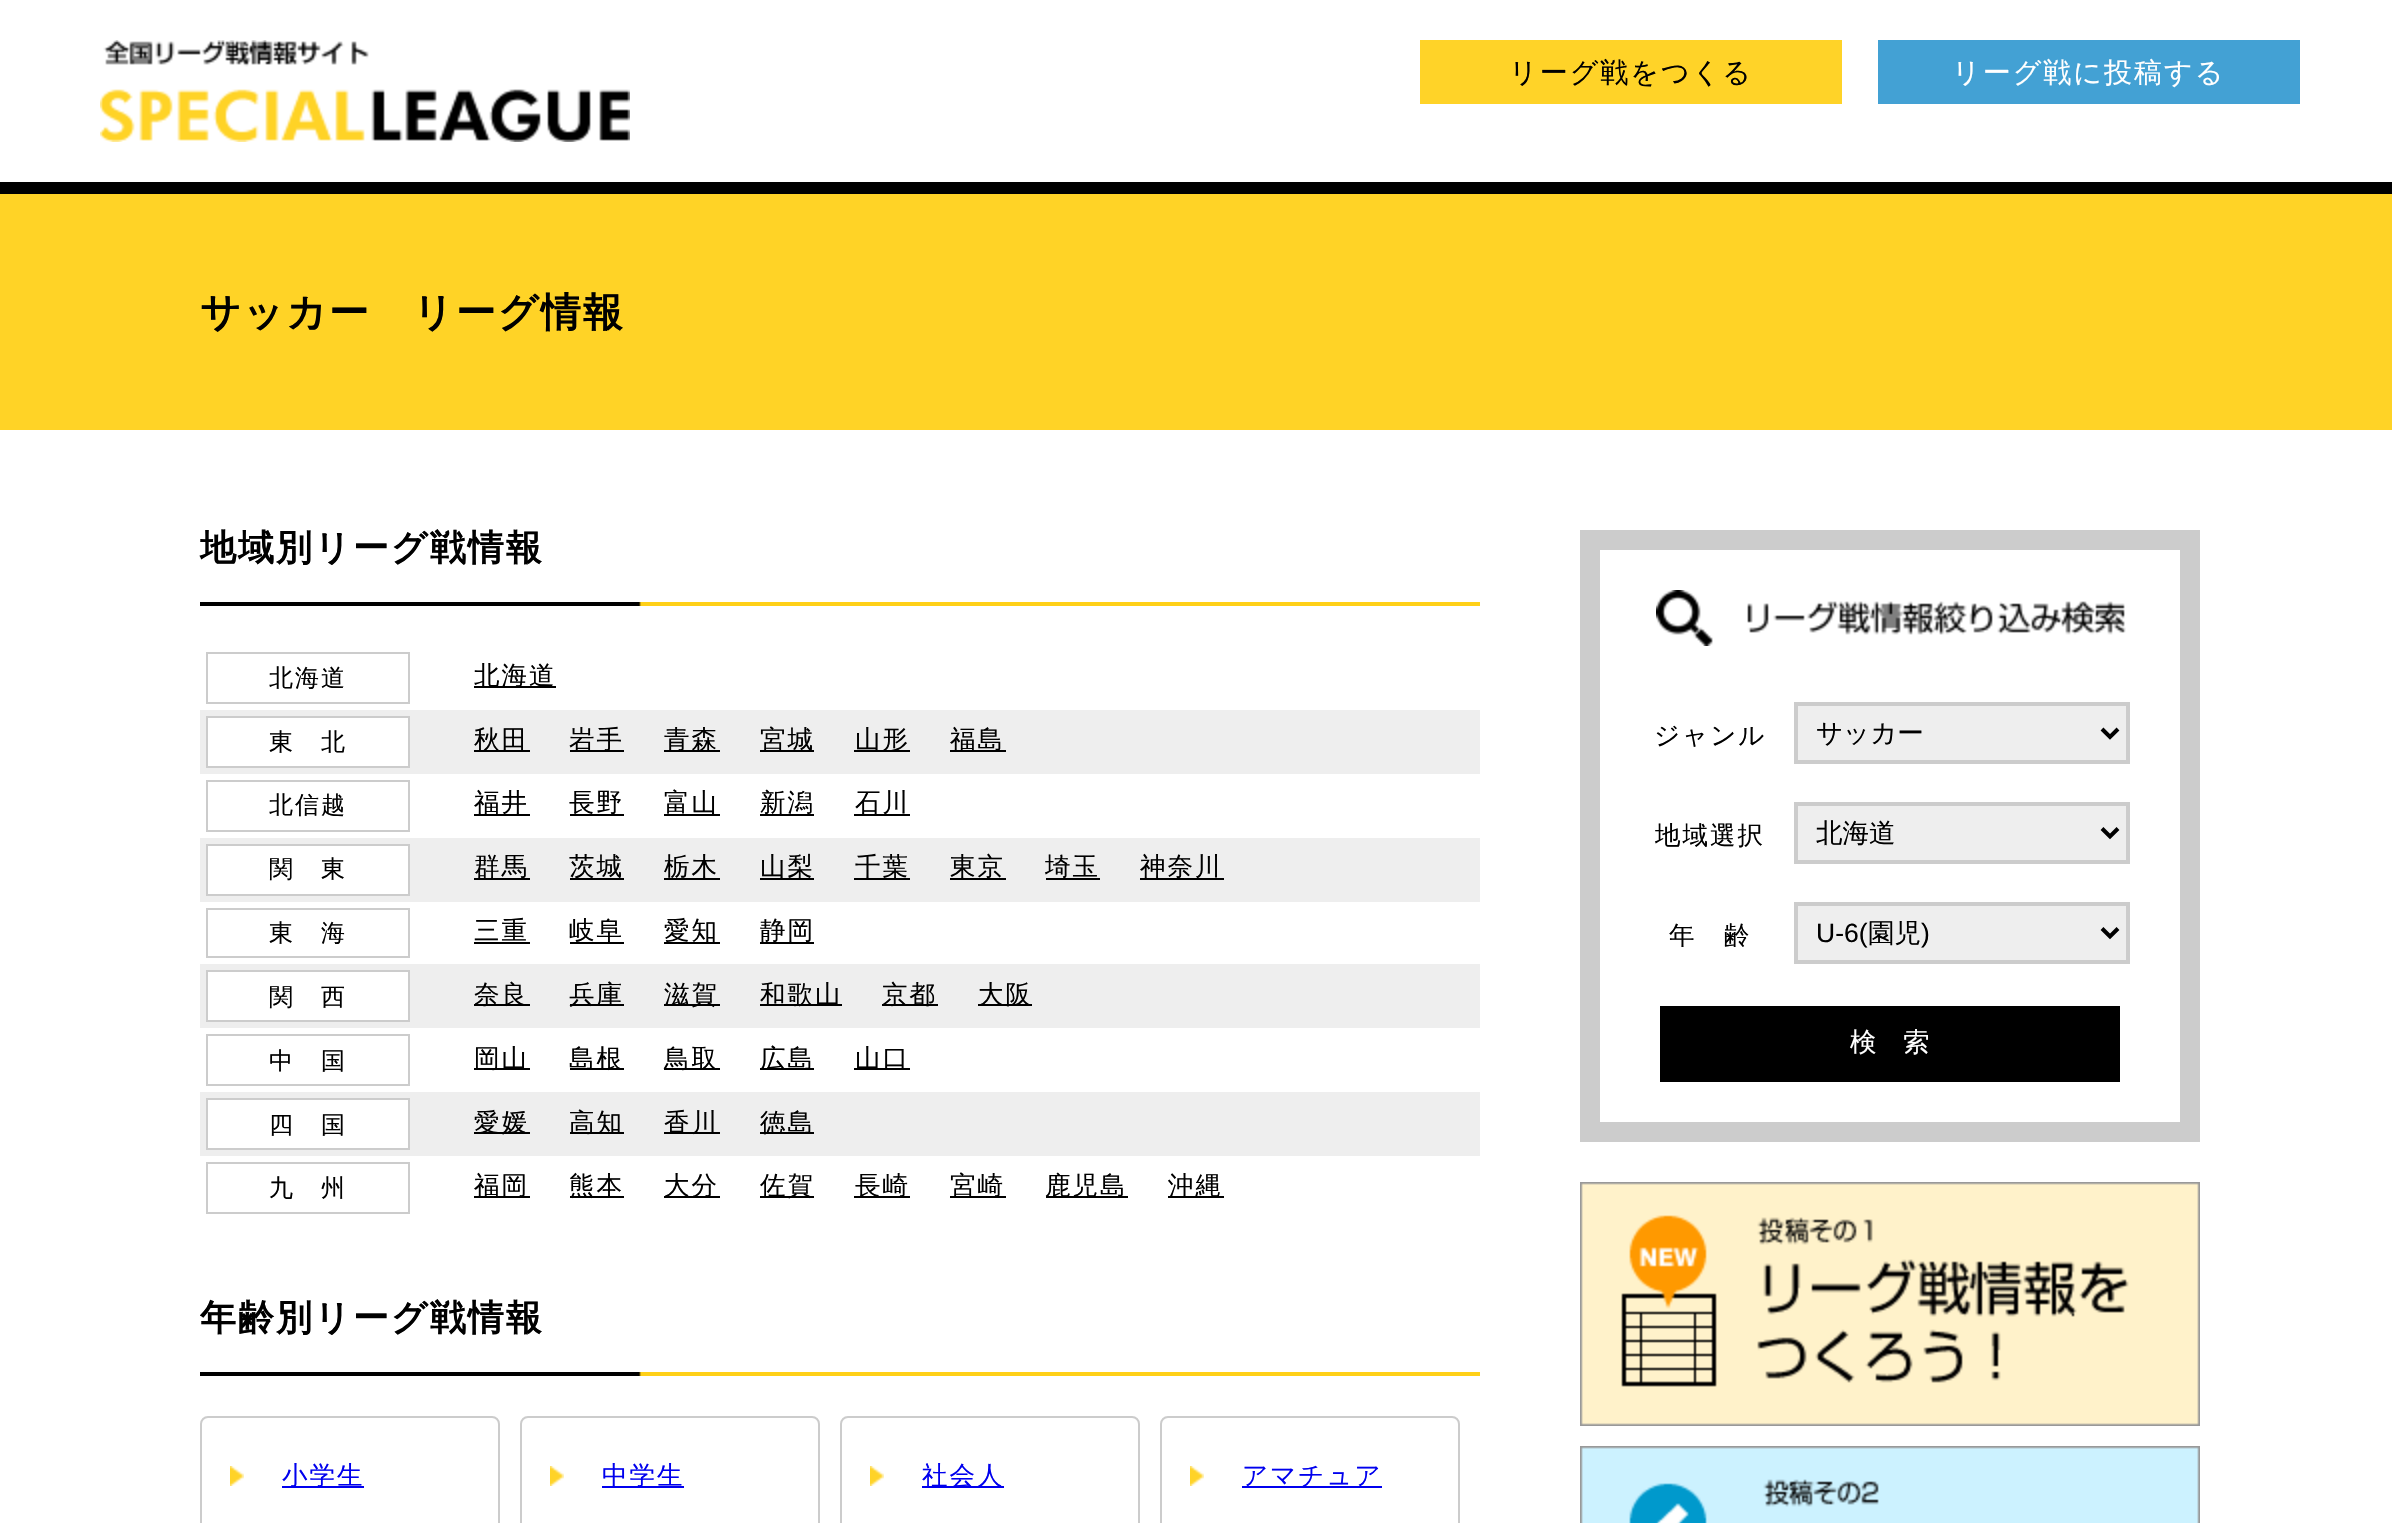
#include "include/core/SkBlurTypes.h"
#include "include/core/SkCanvas.h"
#include "include/core/SkData.h"
#include "include/core/SkFont.h"
#include "include/core/SkFontMgr.h"
#include "include/core/SkImage.h"
#include "include/core/SkMaskFilter.h"
#include "include/core/SkPaint.h"
#include "include/core/SkPathBuilder.h"
#include "include/core/SkTextBlob.h"
#include "include/effects/SkDashPathEffect.h"
#include "include/effects/SkGradientShader.h"
#include "include/utils/SkParsePath.h"

extern sk_sp<SkFontMgr> fontMgr;

void draw(SkCanvas* canvas) {
    SkPaint p;
    p.setAntiAlias(true);
    auto font = [&](const char* family, int weight, float size, bool italic = false) {
        SkFontStyle style(weight, SkFontStyle::kNormal_Width,
            italic ? SkFontStyle::kItalic_Slant : SkFontStyle::kUpright_Slant);
        SkFont result(fontMgr->matchFamilyStyle(family, style), size);
        result.setSubpixel(true);
        return result;
    };
    auto drawTracked = [&](const char* s, float x, float y, const SkFont& font, const SkPaint& ink, float letter, float word) {
        std::vector<SkGlyphID> glyphs(font.countText(s, strlen(s), SkTextEncoding::kUTF8));
        std::vector<float> xs(glyphs.size());
        font.textToGlyphs(s, strlen(s), SkTextEncoding::kUTF8, glyphs);
        font.getXPos(glyphs, xs, x);
        float extra = 0;
        for (size_t i = 0; i < glyphs.size(); i++) {
            xs[i] += extra;
            extra += letter + word * (glyphs[i] == font.unicharToGlyph(' '));
        }
        canvas->drawTextBlob(SkTextBlob::MakeFromPosHGlyphs(glyphs, xs, y, font), 0, 0, ink);
    };
    auto drawPhoto = [&](const char* path, float l, float t, float r, float b) {
        auto image = SkImages::DeferredFromEncodedData(SkData::MakeFromFileName(path));
        canvas->drawImageRect(image, SkRect::MakeLTRB(l, t, r, b), SkSamplingOptions());
    };
    canvas->clear(0xFF000000);
    p.setColor(0xFFFFFFFF);
    canvas->drawRect(SkRect::MakeLTRB(0, 0, 2392, 182), p);
    drawPhoto("media/1.png", 100, 40, 630, 142);
    p.setColor(0xFFFFD328);
    canvas->drawRect(SkRect::MakeLTRB(1420, 40, 1842, 104), p);
    auto font1 = font("WenQuanYi Zen Hei", 500, 28);
    p.setColor(0xFF000000);
    drawTracked("リーグ戦をつくる", 1509, 82, font1, p, 2, 0);
    p.setColor(0xFF43A1D4);
    canvas->drawRect(SkRect::MakeLTRB(1878, 40, 2300, 104), p);
    p.setColor(0xFFFFFFFF);
    drawTracked("リーグ戦に投稿する", 1952, 82, font1, p, 2, 0);
    p.setColor(0xFFFFD326);
    canvas->drawRect(SkRect::MakeLTRB(0, 194, 2392, 430), p);
    auto font2 = font("WenQuanYi Zen Hei", 700, 40);
    p.setColor(0xFF000000);
    drawTracked("サッカー　リーグ情報", 200, 326, font2, p, 2, 0);
    p.setColor(0xFFFFFFFF);
    canvas->drawRect(SkRect::MakeLTRB(0, 430, 2392, 1523), p);
    drawPhoto("media/2.png", 200, 602, 1480, 606);
    auto font3 = font("WenQuanYi Zen Hei", 700, 36);
    p.setColor(0xFF000000);
    drawTracked("地域別リーグ戦情報", 200, 560, font3, p, 2, 0);
    p.setStyle(SkPaint::kStroke_Style);
    p.setStrokeWidth(2);
    p.setColor(0xFFCCCCCC);
    canvas->drawRect(SkRect::MakeLTRB(207, 653, 409, 703), p);
    auto font4 = font("WenQuanYi Zen Hei", 500, 24);
    p.setStyle(SkPaint::kFill_Style);
    p.setColor(0xFF000000);
    drawTracked("北海道", 269, 686, font4, p, 2, 0);
    canvas->drawRect(SkRect::MakeLTRB(474, 686, 556, 688), p);
    auto font5 = font("WenQuanYi Zen Hei", 500, 25.5f);
    drawTracked("北海道", 474, 684, font5, p, 2, 0);
    p.setColor(0xFFEEEEEE);
    canvas->drawRect(SkRect::MakeLTRB(200, 710, 1480, 774), p);
    p.setColor(0xFFFFFFFF);
    canvas->drawRect(SkRect::MakeLTRB(207, 717, 409, 767), p);
    p.setStyle(SkPaint::kStroke_Style);
    p.setColor(0xFFCCCCCC);
    canvas->drawRect(SkRect::MakeLTRB(207, 717, 409, 767), p);
    p.setStyle(SkPaint::kFill_Style);
    p.setColor(0xFF000000);
    drawTracked("東　北", 269, 750, font4, p, 2, 0);
    canvas->drawRect(SkRect::MakeLTRB(474, 750, 530, 752), p);
    drawTracked("秋田", 474, 748, font5, p, 2, 0);
    canvas->drawRect(SkRect::MakeLTRB(570, 750, 624, 752), p);
    drawTracked("岩手", 569, 748, font5, p, 2, 0);
    canvas->drawRect(SkRect::MakeLTRB(664, 750, 720, 752), p);
    drawTracked("青森", 664, 748, font5, p, 2, 0);
    canvas->drawRect(SkRect::MakeLTRB(760, 750, 814, 752), p);
    drawTracked("宮城", 760, 748, font5, p, 2, 0);
    canvas->drawRect(SkRect::MakeLTRB(854, 750, 910, 752), p);
    drawTracked("山形", 855, 748, font5, p, 2, 0);
    canvas->drawRect(SkRect::MakeLTRB(950, 750, 1006, 752), p);
    drawTracked("福島", 950, 748, font5, p, 2, 0);
    p.setStyle(SkPaint::kStroke_Style);
    p.setColor(0xFFCCCCCC);
    canvas->drawRect(SkRect::MakeLTRB(207, 781, 409, 831), p);
    p.setStyle(SkPaint::kFill_Style);
    p.setColor(0xFF000000);
    drawTracked("北信越", 269, 813, font4, p, 2, 0);
    canvas->drawRect(SkRect::MakeLTRB(474, 814, 530, 816), p);
    drawTracked("福井", 474, 811, font5, p, 2, 0);
    canvas->drawRect(SkRect::MakeLTRB(570, 814, 624, 816), p);
    drawTracked("長野", 569, 811, font5, p, 2, 0);
    canvas->drawRect(SkRect::MakeLTRB(664, 814, 720, 816), p);
    drawTracked("富山", 664, 811, font5, p, 2, 0);
    canvas->drawRect(SkRect::MakeLTRB(760, 814, 814, 816), p);
    drawTracked("新潟", 760, 811, font5, p, 2, 0);
    canvas->drawRect(SkRect::MakeLTRB(854, 814, 910, 816), p);
    drawTracked("石川", 855, 811, font5, p, 2, 0);
    p.setColor(0xFFEEEEEE);
    canvas->drawRect(SkRect::MakeLTRB(200, 838, 1480, 902), p);
    p.setColor(0xFFFFFFFF);
    canvas->drawRect(SkRect::MakeLTRB(207, 845, 409, 895), p);
    p.setStyle(SkPaint::kStroke_Style);
    p.setColor(0xFFCCCCCC);
    canvas->drawRect(SkRect::MakeLTRB(207, 845, 409, 895), p);
    p.setStyle(SkPaint::kFill_Style);
    p.setColor(0xFF000000);
    drawTracked("関　東", 269, 877, font4, p, 2, 0);
    canvas->drawRect(SkRect::MakeLTRB(474, 878, 530, 880), p);
    drawTracked("群馬", 474, 875, font5, p, 2, 0);
    canvas->drawRect(SkRect::MakeLTRB(570, 878, 624, 880), p);
    drawTracked("茨城", 569, 875, font5, p, 2, 0);
    canvas->drawRect(SkRect::MakeLTRB(664, 878, 720, 880), p);
    drawTracked("栃木", 664, 875, font5, p, 2, 0);
    canvas->drawRect(SkRect::MakeLTRB(760, 878, 814, 880), p);
    drawTracked("山梨", 760, 875, font5, p, 2, 0);
    canvas->drawRect(SkRect::MakeLTRB(854, 878, 910, 880), p);
    drawTracked("千葉", 855, 875, font5, p, 2, 0);
    canvas->drawRect(SkRect::MakeLTRB(950, 878, 1006, 880), p);
    drawTracked("東京", 950, 875, font5, p, 2, 0);
    canvas->drawRect(SkRect::MakeLTRB(1046, 878, 1100, 880), p);
    drawTracked("埼玉", 1045, 875, font5, p, 2, 0);
    canvas->drawRect(SkRect::MakeLTRB(1140, 878, 1224, 880), p);
    drawTracked("神奈川", 1140, 875, font5, p, 2, 0);
    p.setStyle(SkPaint::kStroke_Style);
    p.setColor(0xFFCCCCCC);
    canvas->drawRect(SkRect::MakeLTRB(207, 909, 409, 957), p);
    p.setStyle(SkPaint::kFill_Style);
    p.setColor(0xFF000000);
    drawTracked("東　海", 269, 941, font4, p, 2, 0);
    drawTracked("三重", 474, 939, font5, p, 2, 0);
    canvas->drawRect(SkRect::MakeLTRB(474, 942, 530, 944), p);
    canvas->drawRect(SkRect::MakeLTRB(570, 942, 624, 944), p);
    drawTracked("岐阜", 569, 939, font5, p, 2, 0);
    canvas->drawRect(SkRect::MakeLTRB(664, 942, 720, 944), p);
    drawTracked("愛知", 664, 939, font5, p, 2, 0);
    canvas->drawRect(SkRect::MakeLTRB(760, 942, 814, 944), p);
    drawTracked("静岡", 760, 939, font5, p, 2, 0);
    p.setColor(0xFFEEEEEE);
    canvas->drawRect(SkRect::MakeLTRB(200, 964, 1480, 1028), p);
    p.setColor(0xFFFFFFFF);
    canvas->drawRect(SkRect::MakeLTRB(207, 971, 409, 1021), p);
    p.setStyle(SkPaint::kStroke_Style);
    p.setColor(0xFFCCCCCC);
    canvas->drawRect(SkRect::MakeLTRB(207, 971, 409, 1021), p);
    p.setStyle(SkPaint::kFill_Style);
    p.setColor(0xFF000000);
    drawTracked("関　西", 269, 1005, font4, p, 2, 0);
    canvas->drawRect(SkRect::MakeLTRB(474, 1004, 530, 1006), p);
    drawTracked("奈良", 474, 1003, font5, p, 2, 0);
    canvas->drawRect(SkRect::MakeLTRB(570, 1004, 624, 1006), p);
    drawTracked("兵庫", 569, 1003, font5, p, 2, 0);
    canvas->drawRect(SkRect::MakeLTRB(664, 1004, 720, 1006), p);
    drawTracked("滋賀", 664, 1003, font5, p, 2, 0);
    canvas->drawRect(SkRect::MakeLTRB(760, 1004, 842, 1006), p);
    drawTracked("和歌山", 760, 1003, font5, p, 2, 0);
    canvas->drawRect(SkRect::MakeLTRB(882, 1004, 938, 1006), p);
    drawTracked("京都", 882, 1003, font5, p, 2, 0);
    canvas->drawRect(SkRect::MakeLTRB(978, 1004, 1032, 1006), p);
    drawTracked("大阪", 978, 1003, font5, p, 2, 0);
    p.setStyle(SkPaint::kStroke_Style);
    p.setColor(0xFFCCCCCC);
    canvas->drawRect(SkRect::MakeLTRB(207, 1035, 409, 1085), p);
    p.setStyle(SkPaint::kFill_Style);
    p.setColor(0xFF000000);
    drawTracked("中　国", 269, 1069, font4, p, 2, 0);
    canvas->drawRect(SkRect::MakeLTRB(474, 1068, 530, 1070), p);
    drawTracked("岡山", 474, 1067, font5, p, 2, 0);
    canvas->drawRect(SkRect::MakeLTRB(570, 1068, 624, 1070), p);
    drawTracked("島根", 569, 1067, font5, p, 2, 0);
    canvas->drawRect(SkRect::MakeLTRB(664, 1068, 720, 1070), p);
    drawTracked("鳥取", 664, 1067, font5, p, 2, 0);
    canvas->drawRect(SkRect::MakeLTRB(760, 1068, 814, 1070), p);
    drawTracked("広島", 760, 1067, font5, p, 2, 0);
    canvas->drawRect(SkRect::MakeLTRB(854, 1068, 910, 1070), p);
    drawTracked("山口", 855, 1067, font5, p, 2, 0);
    p.setColor(0xFFEEEEEE);
    canvas->drawRect(SkRect::MakeLTRB(200, 1092, 1480, 1156), p);
    p.setColor(0xFFFFFFFF);
    canvas->drawRect(SkRect::MakeLTRB(207, 1099, 409, 1149), p);
    p.setStyle(SkPaint::kStroke_Style);
    p.setColor(0xFFCCCCCC);
    canvas->drawRect(SkRect::MakeLTRB(207, 1099, 409, 1149), p);
    p.setStyle(SkPaint::kFill_Style);
    p.setColor(0xFF000000);
    drawTracked("四　国", 269, 1133, font4, p, 2, 0);
    canvas->drawRect(SkRect::MakeLTRB(474, 1132, 530, 1134), p);
    drawTracked("愛媛", 474, 1131, font5, p, 2, 0);
    canvas->drawRect(SkRect::MakeLTRB(570, 1132, 624, 1134), p);
    drawTracked("高知", 569, 1131, font5, p, 2, 0);
    canvas->drawRect(SkRect::MakeLTRB(664, 1132, 720, 1134), p);
    drawTracked("香川", 664, 1131, font5, p, 2, 0);
    canvas->drawRect(SkRect::MakeLTRB(760, 1132, 814, 1134), p);
    drawTracked("徳島", 760, 1131, font5, p, 2, 0);
    p.setStyle(SkPaint::kStroke_Style);
    p.setColor(0xFFCCCCCC);
    canvas->drawRect(SkRect::MakeLTRB(207, 1163, 409, 1213), p);
    p.setStyle(SkPaint::kFill_Style);
    p.setColor(0xFF000000);
    drawTracked("九　州", 269, 1196, font4, p, 2, 0);
    canvas->drawRect(SkRect::MakeLTRB(474, 1196, 530, 1198), p);
    drawTracked("福岡", 474, 1194, font5, p, 2, 0);
    canvas->drawRect(SkRect::MakeLTRB(570, 1196, 624, 1198), p);
    drawTracked("熊本", 569, 1194, font5, p, 2, 0);
    canvas->drawRect(SkRect::MakeLTRB(664, 1196, 720, 1198), p);
    drawTracked("大分", 664, 1194, font5, p, 2, 0);
    canvas->drawRect(SkRect::MakeLTRB(760, 1196, 814, 1198), p);
    drawTracked("佐賀", 760, 1194, font5, p, 2, 0);
    canvas->drawRect(SkRect::MakeLTRB(854, 1196, 910, 1198), p);
    drawTracked("長崎", 855, 1194, font5, p, 2, 0);
    canvas->drawRect(SkRect::MakeLTRB(950, 1196, 1006, 1198), p);
    drawTracked("宮崎", 950, 1194, font5, p, 2, 0);
    canvas->drawRect(SkRect::MakeLTRB(1046, 1196, 1128, 1198), p);
    drawTracked("鹿児島", 1045, 1194, font5, p, 2, 0);
    canvas->drawRect(SkRect::MakeLTRB(1168, 1196, 1224, 1198), p);
    drawTracked("沖縄", 1168, 1194, font5, p, 2, 0);
    drawPhoto("media/2.png", 200, 1372, 1480, 1376);
    drawTracked("年齢別リーグ戦情報", 200, 1330, font3, p, 2, 0);
    drawPhoto("media/3.png", 230, 1466, 244, 1486);
    p.setStyle(SkPaint::kStroke_Style);
    p.setColor(0xFFCCCCCC);
    canvas->drawRoundRect(SkRect::MakeLTRB(201, 1417, 499, 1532), 7, 7, p);
    p.setStyle(SkPaint::kFill_Style);
    p.setColor(0xFF0000EE);
    canvas->drawRect(SkRect::MakeLTRB(282, 1486, 364, 1488), p);
    drawTracked("小学生", 282, 1484, font5, p, 2, 0);
    drawPhoto("media/3.png", 550, 1466, 564, 1486);
    p.setStyle(SkPaint::kStroke_Style);
    p.setColor(0xFFCCCCCC);
    canvas->drawRoundRect(SkRect::MakeLTRB(521, 1417, 819, 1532), 7, 7, p);
    p.setStyle(SkPaint::kFill_Style);
    p.setColor(0xFF0000EE);
    canvas->drawRect(SkRect::MakeLTRB(602, 1486, 684, 1488), p);
    drawTracked("中学生", 602, 1484, font5, p, 2, 0);
    drawPhoto("media/3.png", 870, 1466, 884, 1486);
    p.setStyle(SkPaint::kStroke_Style);
    p.setColor(0xFFCCCCCC);
    canvas->drawRoundRect(SkRect::MakeLTRB(841, 1417, 1139, 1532), 7, 7, p);
    p.setStyle(SkPaint::kFill_Style);
    p.setColor(0xFF0000EE);
    canvas->drawRect(SkRect::MakeLTRB(922, 1486, 1004, 1488), p);
    drawTracked("社会人", 922, 1484, font5, p, 2, 0);
    drawPhoto("media/3.png", 1190, 1466, 1204, 1486);
    p.setStyle(SkPaint::kStroke_Style);
    p.setColor(0xFFCCCCCC);
    canvas->drawRoundRect(SkRect::MakeLTRB(1161, 1417, 1459, 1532), 7, 7, p);
    p.setStyle(SkPaint::kFill_Style);
    p.setColor(0xFF0000EE);
    canvas->drawRect(SkRect::MakeLTRB(1242, 1486, 1382, 1488), p);
    drawTracked("アマチュア", 1242, 1484, font5, p, 2, 0);
    p.setStyle(SkPaint::kStroke_Style);
    p.setStrokeWidth(20);
    p.setColor(0xFFCCCCCC);
    canvas->drawRect(SkRect::MakeLTRB(1590, 540, 2190, 1132), p);
    drawPhoto("media/4.png", 1656, 590, 2126, 646);
    p.setStyle(SkPaint::kFill_Style);
    p.setColor(0xFF000000);
    drawTracked("ジャンル", 1654, 744, font5, p, 2, 0);
    p.setColor(0xFFEEEEEE);
    canvas->drawRect(SkRect::MakeLTRB(1796, 704, 2128, 762), p);
    p.setStyle(SkPaint::kStroke_Style);
    p.setStrokeWidth(4);
    p.setColor(0xFFCCCCCC);
    canvas->drawRect(SkRect::MakeLTRB(1796, 704, 2128, 762), p);
    p.setColor(0xFF000000);
    canvas->drawPath(SkPathBuilder().moveTo(2102, 729).lineTo(2110, 737).lineTo(2118, 729).detach(), p);
    auto font6 = font("WenQuanYi Zen Hei", 500, 26.5f);
    p.setStyle(SkPaint::kFill_Style);
    canvas->drawString("サッカー", 1816, 742, font6, p);
    drawTracked("地域選択", 1655, 844, font5, p, 2, 0);
    p.setColor(0xFFEEEEEE);
    canvas->drawRect(SkRect::MakeLTRB(1796, 804, 2128, 862), p);
    p.setStyle(SkPaint::kStroke_Style);
    p.setColor(0xFFCCCCCC);
    canvas->drawRect(SkRect::MakeLTRB(1796, 804, 2128, 862), p);
    p.setColor(0xFF000000);
    canvas->drawPath(SkPathBuilder().moveTo(2102, 828.5f).lineTo(2110, 836.5f).lineTo(2118, 828.5f).detach(), p);
    p.setStyle(SkPaint::kFill_Style);
    canvas->drawString("北海道", 1816, 842, font6, p);
    drawTracked("年　齢", 1669, 944, font5, p, 2, 0);
    p.setColor(0xFFEEEEEE);
    canvas->drawRect(SkRect::MakeLTRB(1796, 904, 2128, 962), p);
    p.setStyle(SkPaint::kStroke_Style);
    p.setColor(0xFFCCCCCC);
    canvas->drawRect(SkRect::MakeLTRB(1796, 904, 2128, 962), p);
    p.setColor(0xFF000000);
    canvas->drawPath(SkPathBuilder().moveTo(2102, 928.5f).lineTo(2110, 936.5f).lineTo(2118, 928.5f).detach(), p);
    auto font7 = font("Liberation Sans", 400, 26.5f);
    p.setStyle(SkPaint::kFill_Style);
    canvas->drawString("U-6(", 1816, 942, font7, p);
    canvas->drawString("園児", 1868, 942, font6, p);
    canvas->drawString(")", 1921, 942, font7, p);
    canvas->drawRect(SkRect::MakeLTRB(1660, 1006, 2120, 1082), p);
    p.setColor(0xFFFFFFFF);
    canvas->drawString("検　索", 1850, 1051, font6, p);
    drawPhoto("media/5.png", 1580, 1182, 2200, 1426);
    drawPhoto("media/6.png", 1580, 1446, 2200, 1523);
}
